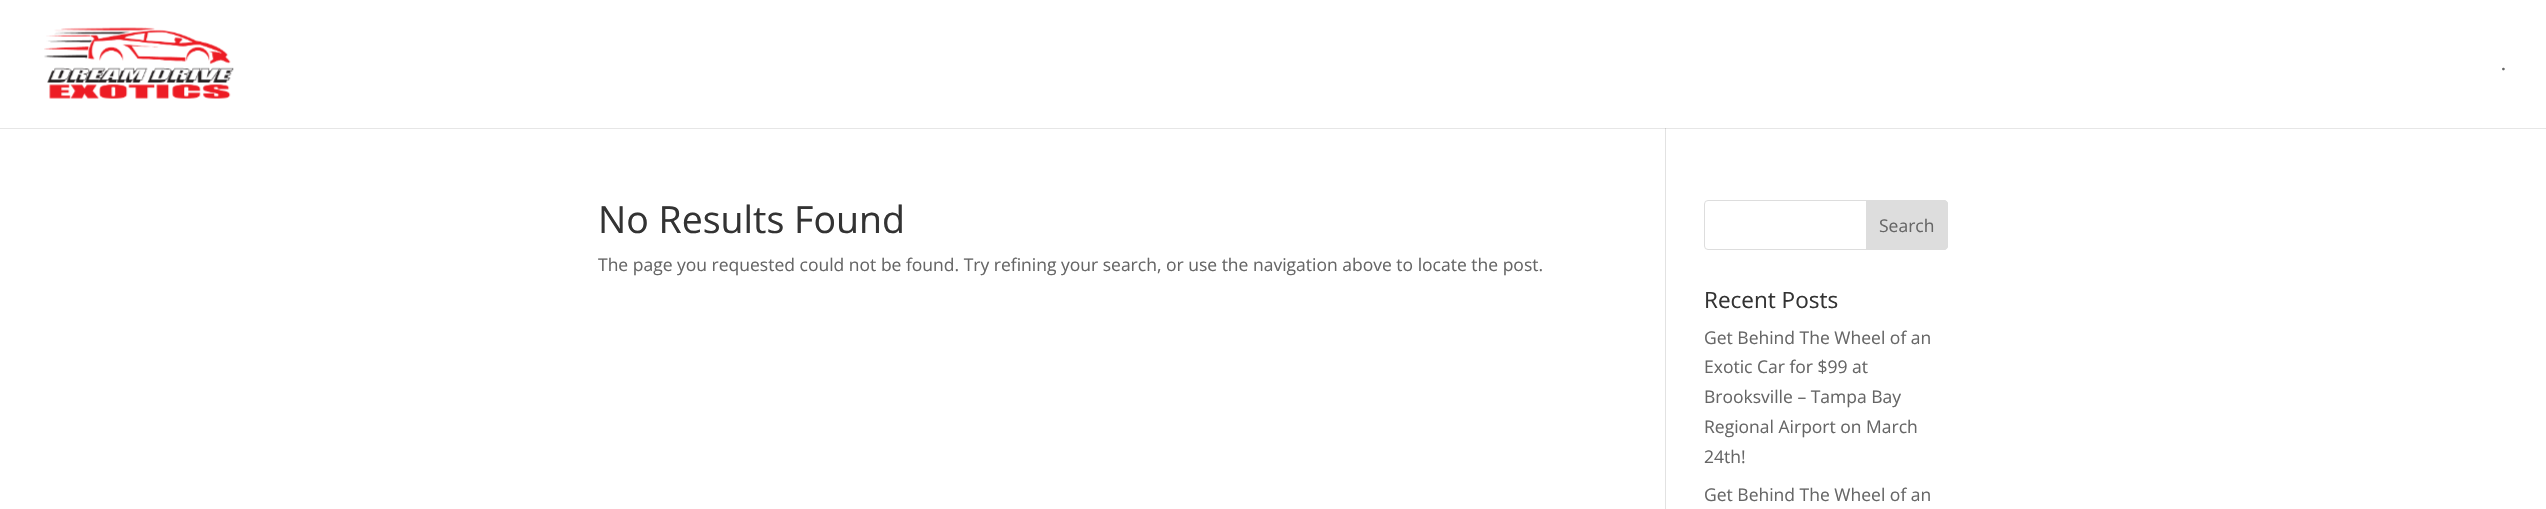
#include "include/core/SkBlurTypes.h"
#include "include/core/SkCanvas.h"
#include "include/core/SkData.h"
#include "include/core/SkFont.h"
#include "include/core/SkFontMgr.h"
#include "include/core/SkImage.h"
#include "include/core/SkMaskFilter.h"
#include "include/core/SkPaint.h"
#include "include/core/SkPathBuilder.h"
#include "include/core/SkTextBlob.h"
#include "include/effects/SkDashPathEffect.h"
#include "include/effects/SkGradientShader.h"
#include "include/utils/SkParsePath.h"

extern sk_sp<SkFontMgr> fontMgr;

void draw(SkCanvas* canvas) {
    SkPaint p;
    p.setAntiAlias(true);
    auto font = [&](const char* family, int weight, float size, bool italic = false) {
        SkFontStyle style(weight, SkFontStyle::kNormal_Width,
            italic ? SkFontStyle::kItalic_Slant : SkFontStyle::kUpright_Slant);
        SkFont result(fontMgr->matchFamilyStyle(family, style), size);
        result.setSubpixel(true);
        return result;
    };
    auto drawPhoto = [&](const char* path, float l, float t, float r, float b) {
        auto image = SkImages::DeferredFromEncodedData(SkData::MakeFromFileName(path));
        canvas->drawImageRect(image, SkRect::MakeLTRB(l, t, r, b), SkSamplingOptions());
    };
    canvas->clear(0xFFFFFFFF);
    p.setColor(0xFFE6E6E6);
    canvas->drawRect(SkRect::MakeLTRB(0, 128, 2546, 129), p);
    drawPhoto("media/1.png", 44, 27, 234, 99);
    auto font1 = font("Open Sans", 600, 17.5f);
    p.setColor(0xFF666666);
    canvas->drawString(".", 2501, 70, font1, p);
    p.setColor(0xFFE2E2E2);
    canvas->drawRect(SkRect::MakeLTRB(1665, 128, 1666, 509), p);
    p.setColor(0xFFCBCBCB);
    canvas->drawRect(SkRect::MakeLTRB(1665, 128, 1666, 129), p);
    auto font2 = font("Open Sans", 400, 37.5f);
    p.setColor(0xFF333333);
    canvas->drawString("No Results Found", 598, 233, font2, p);
    auto font3 = font("Open Sans", 400, 17.5f);
    p.setColor(0xFF666666);
    canvas->drawString("The page you requested could not be found. Try refining your search, or use the navigation above to locate the post.", 598, 271, font3, p);
    p.setStyle(SkPaint::kStroke_Style);
    p.setStrokeWidth(1);
    p.setColor(0xFFDDDDDD);
    canvas->drawRoundRect(SkRect::MakeLTRB(1704.5f, 200.5f, 1947.5f, 249.5f), 3.5f, 3.5f, p);
    p.setStyle(SkPaint::kFill_Style);
    canvas->drawPath(SkPathBuilder().moveTo(1866.5f, 200.5f).lineTo(1944, 200.5f).cubicTo(1946, 200.5f, 1947.5f, 202, 1947.5f, 204).lineTo(1947.5f, 246).cubicTo(1947.5f, 248, 1946, 249.5f, 1944, 249.5f).lineTo(1866.5f, 249.5f).close().detach(), p);
    p.setStyle(SkPaint::kStroke_Style);
    canvas->drawPath(SkPathBuilder().moveTo(1866.5f, 200.5f).lineTo(1944, 200.5f).cubicTo(1946, 200.5f, 1947.5f, 202, 1947.5f, 204).lineTo(1947.5f, 246).cubicTo(1947.5f, 248, 1946, 249.5f, 1944, 249.5f).lineTo(1866.5f, 249.5f).close().detach(), p);
    p.setStyle(SkPaint::kFill_Style);
    p.setColor(0xFF666666);
    canvas->drawString("Search", 1879, 232, font3, p);
    auto font4 = font("Open Sans", 400, 22.5f);
    p.setColor(0xFF333333);
    canvas->drawString("Recent Posts", 1704, 308, font4, p);
    p.setColor(0xFF666666);
    {
        const struct { const char* s; float x, y; } items[] = {
            {"Get Behind The Wheel of an", 1704, 344},
            {"Exotic Car for $99 at", 1704, 373},
            {"Brooksville – Tampa Bay", 1704, 403},
            {"Regional Airport on March", 1704, 433},
            {"24th!", 1704, 463},
            {"Get Behind The Wheel of an", 1704, 501},
        };
        for (auto [s, x, y] : items) {
            canvas->drawString(s, x, y, font3, p);
        }
    }
}
